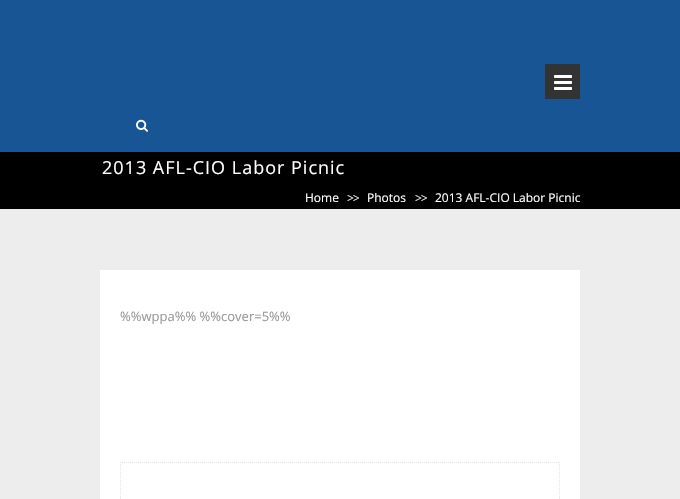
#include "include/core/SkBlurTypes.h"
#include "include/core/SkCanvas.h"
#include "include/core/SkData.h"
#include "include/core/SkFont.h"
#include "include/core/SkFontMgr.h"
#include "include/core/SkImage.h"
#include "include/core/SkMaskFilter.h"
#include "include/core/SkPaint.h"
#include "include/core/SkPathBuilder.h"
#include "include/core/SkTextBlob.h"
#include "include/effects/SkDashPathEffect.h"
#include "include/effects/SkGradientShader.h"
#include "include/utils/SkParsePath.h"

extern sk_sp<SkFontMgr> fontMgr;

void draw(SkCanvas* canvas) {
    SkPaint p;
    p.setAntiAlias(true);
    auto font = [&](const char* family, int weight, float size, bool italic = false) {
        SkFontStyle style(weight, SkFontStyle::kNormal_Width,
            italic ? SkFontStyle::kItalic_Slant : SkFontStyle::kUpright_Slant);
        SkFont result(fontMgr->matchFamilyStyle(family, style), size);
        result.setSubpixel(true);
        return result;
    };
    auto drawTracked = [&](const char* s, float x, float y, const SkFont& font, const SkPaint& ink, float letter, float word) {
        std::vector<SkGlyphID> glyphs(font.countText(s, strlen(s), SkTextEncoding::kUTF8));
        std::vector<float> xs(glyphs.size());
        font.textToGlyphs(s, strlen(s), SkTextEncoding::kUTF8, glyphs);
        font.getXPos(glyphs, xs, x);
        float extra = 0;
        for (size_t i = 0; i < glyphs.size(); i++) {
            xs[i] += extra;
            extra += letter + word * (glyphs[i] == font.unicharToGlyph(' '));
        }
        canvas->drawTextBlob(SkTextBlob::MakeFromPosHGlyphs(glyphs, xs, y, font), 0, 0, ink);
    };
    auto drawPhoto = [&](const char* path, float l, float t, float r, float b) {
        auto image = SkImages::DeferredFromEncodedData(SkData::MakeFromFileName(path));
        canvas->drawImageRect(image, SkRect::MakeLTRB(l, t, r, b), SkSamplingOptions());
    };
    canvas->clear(0xFFEEEDED);
    p.setColor(0xFF185594);
    canvas->drawRect(SkRect::MakeLTRB(0, 0, 680, 152), p);
    p.setColor(0xFF333333);
    canvas->drawRect(SkRect::MakeLTRB(545, 64, 580, 99), p);
    drawPhoto("media/1.png", 554, 75, 572, 90);
    drawPhoto("media/2.png", 136, 119, 148, 132);
    p.setColor(0xFF000000);
    canvas->drawRect(SkRect::MakeLTRB(0, 152, 680, 209), p);
    auto font1 = font("Open Sans", 400, 18);
    p.setColor(0xFFFFFFFF);
    drawTracked("2013 AFL-CIO Labor Picnic", 102, 174, font1, p, 1, 0);
    auto font2 = font("Open Sans", 400, 12);
    canvas->drawString("Home", 305, 202, font2, p);
    auto font3 = font("Liberation Serif", 400, 12);
    drawTracked(">>", 347, 202, font3, p, -1, 0);
    canvas->drawString("Photos", 367, 202, font2, p);
    drawTracked(">>", 415, 202, font3, p, -1, 0);
    canvas->drawString("2013 AFL-CIO Labor Picnic", 435, 202, font2, p);
    canvas->drawRect(SkRect::MakeLTRB(100, 270, 580, 499), p);
    auto font4 = font("Open Sans", 400, 13);
    p.setColor(0xFF999999);
    canvas->drawString("%%wppa%% %%cover=5%%", 120, 321, font4, p);
    p.setStyle(SkPaint::kStroke_Style);
    p.setStrokeWidth(1);
    p.setColor(0xFFE4E4E4);
    p.setPathEffect(SkDashPathEffect::Make({{1, 1}}, 0));
    canvas->drawPath(SkPathBuilder().moveTo(120, 462.5f).lineTo(560, 462.5f).detach(), p);
    p.setPathEffect(nullptr);
    p.setPathEffect(SkDashPathEffect::Make({{1, 1}}, 0));
    canvas->drawPath(SkPathBuilder().moveTo(559.5f, 462).lineTo(559.5f, 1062).detach(), p);
    p.setPathEffect(nullptr);
    p.setPathEffect(SkDashPathEffect::Make({{1, 1}}, 0));
    canvas->drawPath(SkPathBuilder().moveTo(120.5f, 462).lineTo(120.5f, 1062).detach(), p);
    p.setPathEffect(nullptr);
}
